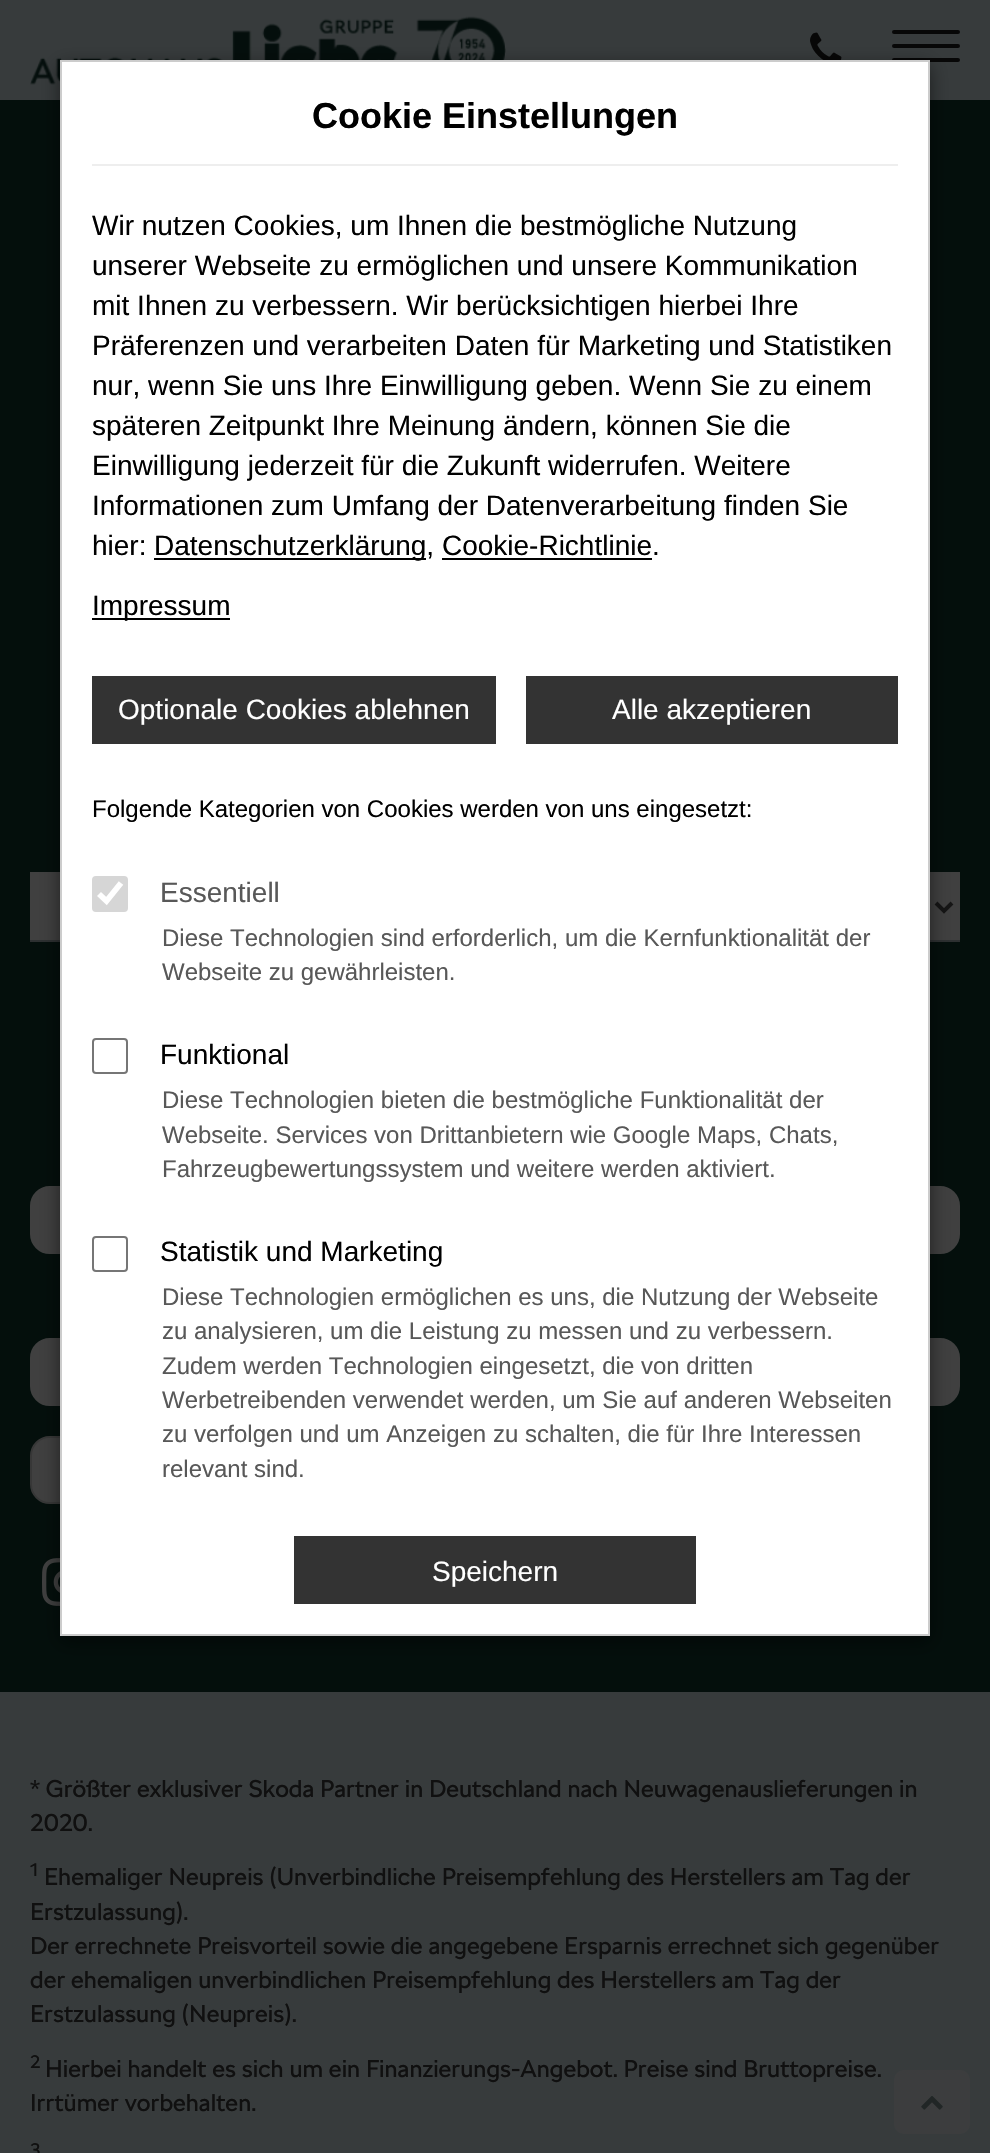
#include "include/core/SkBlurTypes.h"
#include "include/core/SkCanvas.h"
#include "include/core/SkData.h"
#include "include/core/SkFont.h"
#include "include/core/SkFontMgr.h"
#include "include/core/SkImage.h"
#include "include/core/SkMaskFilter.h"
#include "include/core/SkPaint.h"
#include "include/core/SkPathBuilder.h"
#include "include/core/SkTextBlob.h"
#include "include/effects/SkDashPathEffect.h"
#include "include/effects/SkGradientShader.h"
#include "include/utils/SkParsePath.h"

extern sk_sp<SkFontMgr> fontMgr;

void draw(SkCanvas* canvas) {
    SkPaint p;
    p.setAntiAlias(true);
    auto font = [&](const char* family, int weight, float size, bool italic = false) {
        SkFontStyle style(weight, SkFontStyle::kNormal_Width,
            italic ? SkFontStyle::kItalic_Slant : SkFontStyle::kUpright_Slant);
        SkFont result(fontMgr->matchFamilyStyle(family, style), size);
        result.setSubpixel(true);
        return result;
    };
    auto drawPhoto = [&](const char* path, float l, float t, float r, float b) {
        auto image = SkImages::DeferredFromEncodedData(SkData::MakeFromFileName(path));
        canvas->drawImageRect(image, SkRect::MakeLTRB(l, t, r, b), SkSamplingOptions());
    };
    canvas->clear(0xFF373B3C);
    drawPhoto("media/1.png", 30, 16, 506, 85);
    drawPhoto("media/2.png", 810, 32, 842, 60);
    p.setColor(0xFF070707);
    canvas->drawRoundRect(SkRect::MakeLTRB(892, 44, 960, 48), 2, 2, p);
    canvas->drawRoundRect(SkRect::MakeLTRB(892, 58, 960, 62), 2, 2, p);
    {
        const struct { float l, t, r, b; SkColor color; } items[] = {
            {0, 100, 990, 1692, 0xFF040F0C},
            {30, 872, 960, 940, 0xFF404040},
            {30, 940, 960, 942, 0xFF2D3031},
        };
        for (auto [l, t, r, b, color] : items) {
            p.setColor(color);
            canvas->drawRect(SkRect::MakeLTRB(l, t, r, b), p);
        }
    }
    p.setStyle(SkPaint::kStroke_Style);
    p.setStrokeWidth(4);
    p.setColor(0xFF151515);
    canvas->drawPath(SkPathBuilder().moveTo(936, 903).lineTo(944, 911).lineTo(952, 903).detach(), p);
    p.setStyle(SkPaint::kFill_Style);
    p.setColor(0xFF404040);
    canvas->drawRoundRect(SkRect::MakeLTRB(31, 1187, 959, 1253), 19, 19, p);
    p.setStyle(SkPaint::kStroke_Style);
    p.setStrokeWidth(2);
    canvas->drawRoundRect(SkRect::MakeLTRB(31, 1187, 959, 1253), 19, 19, p);
    p.setStyle(SkPaint::kFill_Style);
    canvas->drawRoundRect(SkRect::MakeLTRB(31, 1339, 959, 1405), 19, 19, p);
    p.setStyle(SkPaint::kStroke_Style);
    canvas->drawRoundRect(SkRect::MakeLTRB(31, 1339, 959, 1405), 19, 19, p);
    p.setStyle(SkPaint::kFill_Style);
    canvas->drawRoundRect(SkRect::MakeLTRB(31, 1437, 171, 1503), 19, 19, p);
    p.setStyle(SkPaint::kStroke_Style);
    p.setColor(0xFF373737);
    canvas->drawRoundRect(SkRect::MakeLTRB(31, 1437, 171, 1503), 19, 19, p);
    drawPhoto("media/3.png", 42, 1558, 60, 1606);
    p.setStyle(SkPaint::kFill_Style);
    p.setColor(0x80000000);
    p.setMaskFilter(SkMaskFilter::MakeBlur(kNormal_SkBlurStyle, 9));
    canvas->drawRect(SkRect::MakeLTRB(60, 66, 930, 1642), p);
    p.setMaskFilter(nullptr);
    p.setColor(0xFFFFFFFF);
    canvas->drawRect(SkRect::MakeLTRB(61, 61, 929, 1635), p);
    p.setStyle(SkPaint::kStroke_Style);
    p.setColor(0xFFCCCCCC);
    canvas->drawRect(SkRect::MakeLTRB(61, 61, 929, 1635), p);
    p.setStyle(SkPaint::kFill_Style);
    p.setColor(0xFFEEEEEE);
    canvas->drawRect(SkRect::MakeLTRB(92, 164, 898, 166), p);
    auto font1 = font("Liberation Sans", 700, 36);
    p.setColor(0xFF000000);
    canvas->drawString("Cookie Einstellungen", 312, 128, font1, p);
    auto font2 = font("Liberation Sans", 400, 28);
    {
        const struct { const char* s; float x, y; } items[] = {
            {"Wir nutzen Cookies, um Ihnen die bestmögliche Nutzung", 92, 235},
            {"unserer Webseite zu ermöglichen und unsere Kommunikation", 92, 275},
            {"mit Ihnen zu verbessern. Wir berücksichtigen hierbei Ihre", 92, 315},
            {"Präferenzen und verarbeiten Daten für Marketing und Statistiken", 92, 355},
            {"nur, wenn Sie uns Ihre Einwilligung geben. Wenn Sie zu einem", 92, 395},
            {"späteren Zeitpunkt Ihre Meinung ändern, können Sie die", 92, 435},
            {"Einwilligung jederzeit für die Zukunft widerrufen. Weitere", 92, 475},
            {"Informationen zum Umfang der Datenverarbeitung finden Sie", 92, 515},
            {"hier:", 92, 555},
        };
        for (auto [s, x, y] : items) {
            canvas->drawString(s, x, y, font2, p);
        }
    }
    canvas->drawRect(SkRect::MakeLTRB(154, 558, 426, 560), p);
    canvas->drawString("Datenschutzerklärung, Cookie-Richtlinie.", 154, 555, font2, p);
    canvas->drawRect(SkRect::MakeLTRB(442, 558, 652, 560), p);
    canvas->drawRect(SkRect::MakeLTRB(92, 618, 230, 620), p);
    canvas->drawString("Impressum", 92, 615, font2, p);
    p.setColor(0xFF333333);
    canvas->drawRect(SkRect::MakeLTRB(92, 676, 496, 744), p);
    p.setColor(0xFFFFFFFF);
    canvas->drawString("Optionale Cookies ablehnen", 118, 719, font2, p);
    p.setColor(0xFF333333);
    canvas->drawRect(SkRect::MakeLTRB(526, 676, 898, 744), p);
    p.setColor(0xFFFFFFFF);
    canvas->drawString("Alle akzeptieren", 612, 719, font2, p);
    auto font3 = font("Liberation Sans", 400, 24);
    p.setColor(0xFF000000);
    canvas->drawString("Folgende Kategorien von Cookies werden von uns eingesetzt:", 92, 817, font3, p);
    p.setColor(0xFFD6D6D6);
    canvas->drawRoundRect(SkRect::MakeLTRB(92, 876, 128, 912), 4, 4, p);
    p.setStyle(SkPaint::kStroke_Style);
    p.setStrokeWidth(5.8f);
    p.setColor(0xFFFFFFFF);
    canvas->drawPath(SkPathBuilder().moveTo(99, 894).lineTo(106.5f, 901).lineTo(121, 883).detach(), p);
    p.setStyle(SkPaint::kFill_Style);
    p.setColor(0xFF585858);
    canvas->drawString("Essentiell", 160, 902, font2, p);
    canvas->drawString("Diese Technologien sind erforderlich, um die Kernfunktionalität der", 162, 946, font3, p);
    canvas->drawString("Webseite zu gewährleisten.", 162, 980, font3, p);
    p.setStyle(SkPaint::kStroke_Style);
    p.setStrokeWidth(2);
    p.setColor(0xFF767676);
    canvas->drawRoundRect(SkRect::MakeLTRB(93, 1039, 127, 1073), 3, 3, p);
    p.setStyle(SkPaint::kFill_Style);
    p.setColor(0xFF000000);
    canvas->drawString("Funktional", 160, 1064, font2, p);
    p.setColor(0xFF585858);
    {
        const struct { const char* s; float x, y; } items[] = {
            {"Diese Technologien bieten die bestmögliche Funktionalität der", 162, 1108},
            {"Webseite. Services von Drittanbietern wie Google Maps, Chats,", 162, 1143},
            {"Fahrzeugbewertungssystem und weitere werden aktiviert.", 162, 1177},
        };
        for (auto [s, x, y] : items) {
            canvas->drawString(s, x, y, font3, p);
        }
    }
    p.setStyle(SkPaint::kStroke_Style);
    p.setColor(0xFF767676);
    canvas->drawRoundRect(SkRect::MakeLTRB(93, 1237, 127, 1271), 3, 3, p);
    p.setStyle(SkPaint::kFill_Style);
    p.setColor(0xFF000000);
    canvas->drawString("Statistik und Marketing", 160, 1261, font2, p);
    p.setColor(0xFF585858);
    {
        const struct { const char* s; float x, y; } items[] = {
            {"Diese Technologien ermöglichen es uns, die Nutzung der Webseite", 162, 1305},
            {"zu analysieren, um die Leistung zu messen und zu verbessern.", 162, 1339},
            {"Zudem werden Technologien eingesetzt, die von dritten", 162, 1374},
            {"Werbetreibenden verwendet werden, um Sie auf anderen Webseiten", 162, 1408},
            {"zu verfolgen und um Anzeigen zu schalten, die für Ihre Interessen", 162, 1442},
            {"relevant sind.", 162, 1477},
        };
        for (auto [s, x, y] : items) {
            canvas->drawString(s, x, y, font3, p);
        }
    }
    p.setColor(0xFF333333);
    canvas->drawRect(SkRect::MakeLTRB(294, 1536, 696, 1604), p);
    p.setColor(0xFFFFFFFF);
    canvas->drawString("Speichern", 432, 1581, font2, p);
    p.setColor(0xFF070707);
    canvas->drawRoundRect(SkRect::MakeLTRB(892, 30, 960, 34), 2, 2, p);
    auto font4 = font("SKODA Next", 400, 24);
    p.setColor(0xFF101010);
    canvas->drawString("* Größter exklusiver Skoda Partner in Deutschland nach Neuwagenauslieferungen in", 30, 1797, font4, p);
    canvas->drawString("2020.", 30, 1831, font4, p);
    auto font5 = font("SKODA Next", 400, 18);
    canvas->drawString("1", 30, 1876, font5, p);
    {
        const struct { const char* s; float x, y; } items[] = {
            {"Ehemaliger Neupreis (Unverbindliche Preisempfehlung des Herstellers am Tag der", 44, 1885},
            {"Erstzulassung).", 30, 1920},
            {"Der errechnete Preisvorteil sowie die angegebene Ersparnis errechnet sich gegenüber", 30, 1954},
            {"der ehemaligen unverbindlichen Preisempfehlung des Herstellers am Tag der", 30, 1988},
            {"Erstzulassung (Neupreis).", 30, 2022},
        };
        for (auto [s, x, y] : items) {
            canvas->drawString(s, x, y, font4, p);
        }
    }
    canvas->drawString("2", 30, 2068, font5, p);
    canvas->drawString("Hierbei handelt es sich um ein Finanzierungs-Angebot. Preise sind Bruttopreise.", 45, 2077, font4, p);
    canvas->drawString("Irrtümer vorbehalten.", 30, 2111, font4, p);
    canvas->drawString("3", 30, 2156, font5, p);
    p.setColor(0xFF3C3D3E);
    canvas->drawRoundRect(SkRect::MakeLTRB(894, 2070, 970, 2134), 10, 10, p);
    drawPhoto("media/4.png", 921, 2096, 943, 2110);
}
